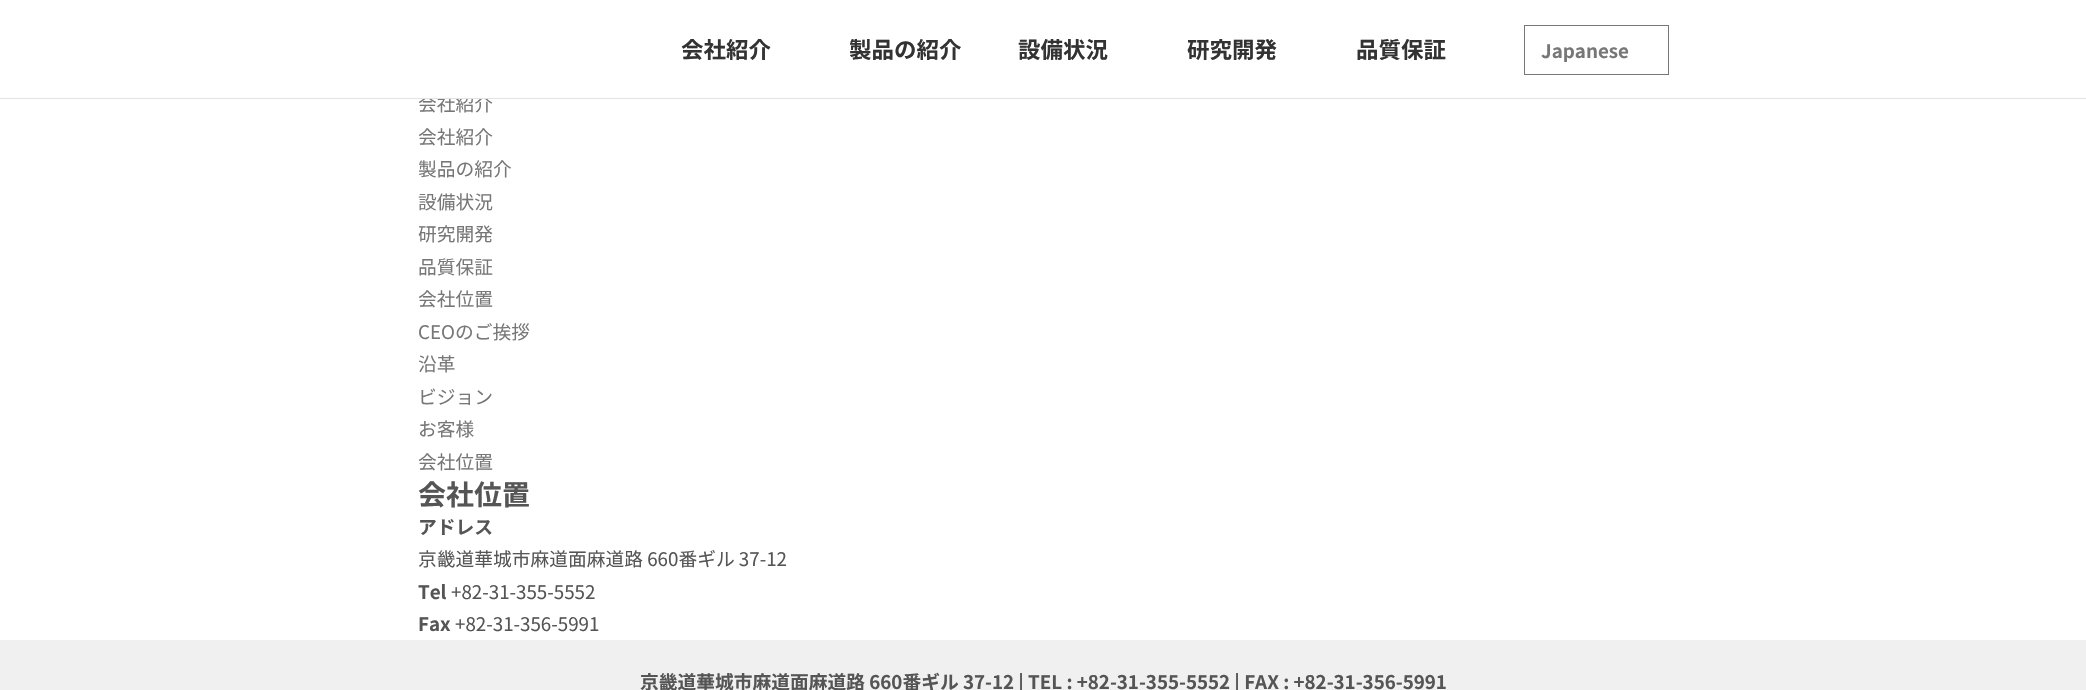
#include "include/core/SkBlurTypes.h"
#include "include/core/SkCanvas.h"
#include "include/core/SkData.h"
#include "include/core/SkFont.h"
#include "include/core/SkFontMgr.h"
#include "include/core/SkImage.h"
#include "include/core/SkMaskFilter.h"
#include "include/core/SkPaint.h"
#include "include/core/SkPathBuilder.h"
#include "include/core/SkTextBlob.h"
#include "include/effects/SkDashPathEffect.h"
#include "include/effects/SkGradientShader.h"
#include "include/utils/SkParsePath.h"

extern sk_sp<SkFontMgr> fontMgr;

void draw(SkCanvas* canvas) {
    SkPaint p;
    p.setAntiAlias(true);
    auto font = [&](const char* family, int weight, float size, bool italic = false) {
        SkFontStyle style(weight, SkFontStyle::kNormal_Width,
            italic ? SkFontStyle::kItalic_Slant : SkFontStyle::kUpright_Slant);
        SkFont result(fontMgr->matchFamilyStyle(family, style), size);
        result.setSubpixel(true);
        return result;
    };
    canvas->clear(0xFFFFFFFF);
    auto font1 = font("Noto Sans JP", 400, 18.75f);
    p.setColor(0xFF777777);
    canvas->drawString("会社紹介", 418, 111, font1, p);
    p.setColor(0xFFFFFFFF);
    canvas->drawRect(SkRect::MakeLTRB(424, 95, 487, 98), p);
    p.setColor(0xFFE3E3E3);
    canvas->drawRect(SkRect::MakeLTRB(0, 98, 2086, 99), p);
    auto font2 = font("Noto Sans JP", 700, 22.5f);
    p.setColor(0xFF333333);
    {
        const struct { const char* s; float x, y; } items[] = {
            {"会社紹介", 681, 58},
            {"製品の紹介", 849, 58},
            {"設備状況", 1018, 58},
            {"研究開発", 1187, 58},
            {"品質保証", 1356, 58},
        };
        for (auto [s, x, y] : items) {
            canvas->drawString(s, x, y, font2, p);
        }
    }
    p.setStyle(SkPaint::kStroke_Style);
    p.setStrokeWidth(1);
    p.setColor(0xFF777777);
    canvas->drawRect(SkRect::MakeLTRB(1524.5f, 25.5f, 1668.5f, 74.5f), p);
    auto font3 = font("Noto Sans JP", 700, 18.75f);
    p.setStyle(SkPaint::kFill_Style);
    canvas->drawString("Japanese", 1541, 58, font3, p);
    {
        const struct { const char* s; float x, y; } items[] = {
            {"会社紹介", 418, 144},
            {"製品の紹介", 418, 176},
            {"設備状況", 418, 209},
            {"研究開発", 418, 241},
            {"品質保証", 418, 274},
            {"会社位置", 418, 306},
            {"CEOのご挨拶", 418, 339},
            {"沿革", 418, 371},
            {"ビジョン", 418, 404},
            {"お客様", 418, 436},
            {"会社位置", 418, 469},
        };
        for (auto [s, x, y] : items) {
            canvas->drawString(s, x, y, font1, p);
        }
    }
    auto font4 = font("Noto Sans JP", 700, 28);
    p.setColor(0xFF555555);
    canvas->drawString("会社位置", 418, 505, font4, p);
    canvas->drawString("アドレス", 418, 534, font3, p);
    canvas->drawString("京畿道華城市麻道面麻道路 660番ギル 37-12", 418, 566, font1, p);
    canvas->drawString("Tel", 418, 599, font3, p);
    canvas->drawString("+82-31-355-5552", 451, 599, font1, p);
    canvas->drawString("Fax", 418, 631, font3, p);
    canvas->drawString("+82-31-356-5991", 455, 631, font1, p);
    p.setColor(0xFFF0F0F0);
    canvas->drawRect(SkRect::MakeLTRB(0, 640, 2086, 690), p);
    p.setColor(0xFF555555);
    canvas->drawString("京畿道華城市麻道面麻道路 660番ギル 37-12 | TEL : +82-31-355-5552 | FAX : +82-31-356-5991", 640, 689, font3, p);
}
